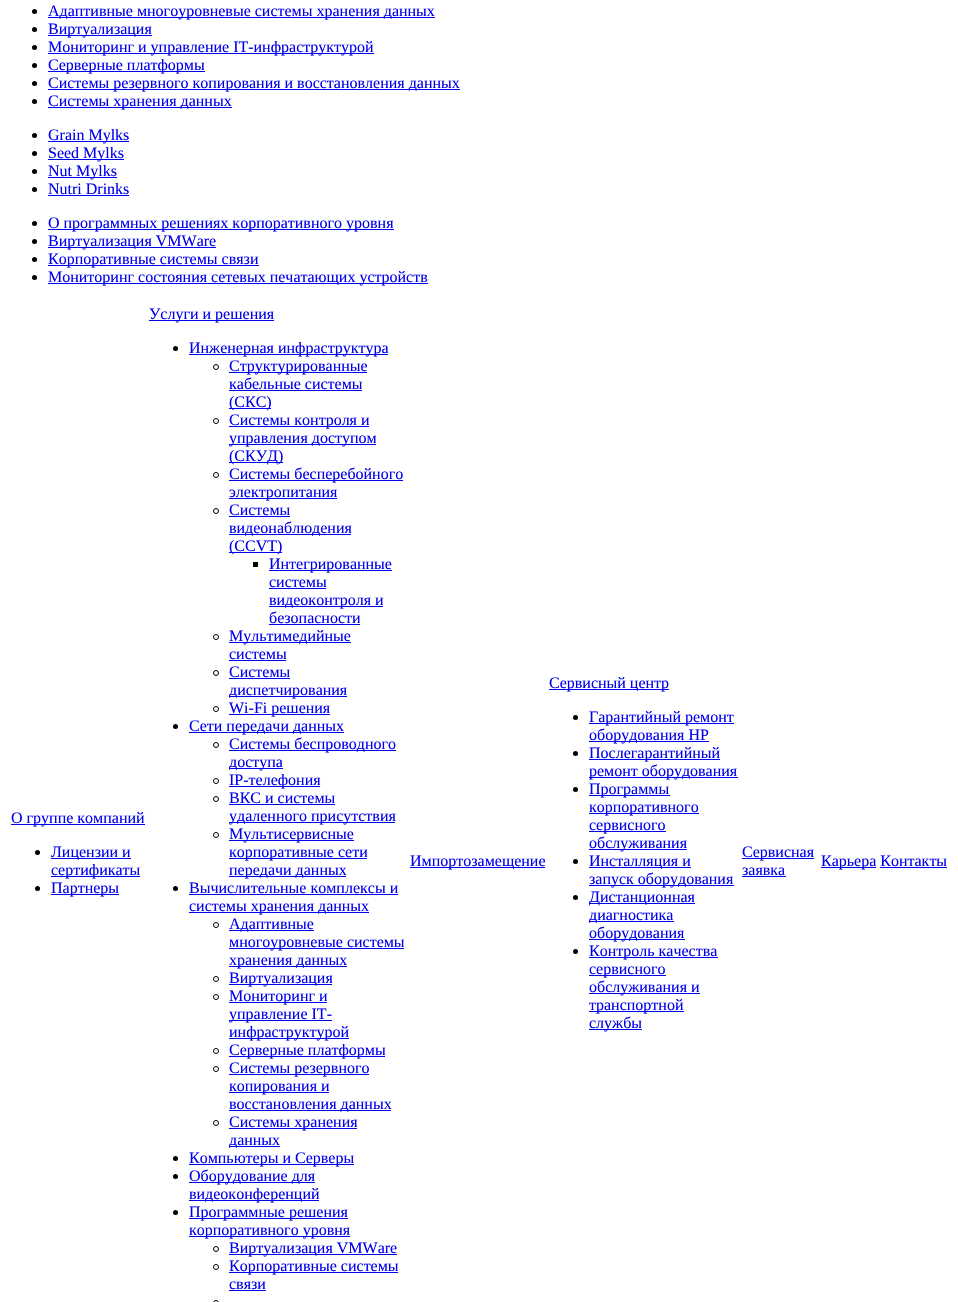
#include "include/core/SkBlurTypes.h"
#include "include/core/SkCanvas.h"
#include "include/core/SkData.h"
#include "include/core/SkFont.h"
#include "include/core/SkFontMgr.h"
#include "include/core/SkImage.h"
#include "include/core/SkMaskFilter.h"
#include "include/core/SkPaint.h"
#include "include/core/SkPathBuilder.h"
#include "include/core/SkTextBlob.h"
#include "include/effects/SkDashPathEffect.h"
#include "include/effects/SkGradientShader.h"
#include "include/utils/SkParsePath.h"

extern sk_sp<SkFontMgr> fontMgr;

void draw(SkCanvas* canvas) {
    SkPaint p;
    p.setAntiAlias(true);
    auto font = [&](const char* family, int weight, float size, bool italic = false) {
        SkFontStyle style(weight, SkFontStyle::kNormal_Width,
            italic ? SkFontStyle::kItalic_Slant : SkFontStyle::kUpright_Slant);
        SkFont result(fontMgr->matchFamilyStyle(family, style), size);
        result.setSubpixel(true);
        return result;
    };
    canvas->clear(0xFFFFFFFF);
    p.setColor(0xFF000000);
    canvas->drawCircle(34.5f, 11.5f, 2.5f, p);
    p.setColor(0xFF0000EE);
    canvas->drawRect(SkRect::MakeLTRB(48, 17, 435, 18), p);
    auto font1 = font("Liberation Serif", 400, 16);
    canvas->drawString("Адаптивные многоуровневые системы хранения данных", 48, 16, font1, p);
    p.setColor(0xFF000000);
    canvas->drawCircle(34.5f, 29.5f, 2.5f, p);
    p.setColor(0xFF0000EE);
    canvas->drawRect(SkRect::MakeLTRB(48, 35, 152, 36), p);
    canvas->drawString("Виртуализация", 48, 34, font1, p);
    p.setColor(0xFF000000);
    canvas->drawCircle(34.5f, 47.5f, 2.5f, p);
    p.setColor(0xFF0000EE);
    canvas->drawRect(SkRect::MakeLTRB(48, 53, 374, 54), p);
    canvas->drawString("Мониторинг и управление IT-инфраструктурой", 48, 52, font1, p);
    p.setColor(0xFF000000);
    canvas->drawCircle(34.5f, 65.5f, 2.5f, p);
    p.setColor(0xFF0000EE);
    canvas->drawRect(SkRect::MakeLTRB(48, 71, 205, 72), p);
    canvas->drawString("Серверные платформы", 48, 70, font1, p);
    p.setColor(0xFF000000);
    canvas->drawCircle(34.5f, 83.5f, 2.5f, p);
    p.setColor(0xFF0000EE);
    canvas->drawRect(SkRect::MakeLTRB(48, 89, 460, 90), p);
    canvas->drawString("Системы резервного копирования и восстановления данных", 48, 88, font1, p);
    p.setColor(0xFF000000);
    canvas->drawCircle(34.5f, 101.5f, 2.5f, p);
    p.setColor(0xFF0000EE);
    canvas->drawRect(SkRect::MakeLTRB(48, 107, 232, 108), p);
    canvas->drawString("Системы хранения данных", 48, 106, font1, p);
    p.setColor(0xFF000000);
    canvas->drawCircle(34.5f, 135.5f, 2.5f, p);
    p.setColor(0xFF0000EE);
    canvas->drawRect(SkRect::MakeLTRB(48, 141, 129, 142), p);
    canvas->drawString("Grain Mylks", 48, 140, font1, p);
    p.setColor(0xFF000000);
    canvas->drawCircle(34.5f, 153.5f, 2.5f, p);
    p.setColor(0xFF0000EE);
    canvas->drawRect(SkRect::MakeLTRB(48, 159, 124, 160), p);
    canvas->drawString("Seed Mylks", 48, 158, font1, p);
    p.setColor(0xFF000000);
    canvas->drawCircle(34.5f, 171.5f, 2.5f, p);
    p.setColor(0xFF0000EE);
    canvas->drawRect(SkRect::MakeLTRB(48, 177, 117, 178), p);
    canvas->drawString("Nut Mylks", 48, 176, font1, p);
    p.setColor(0xFF000000);
    canvas->drawCircle(34.5f, 189.5f, 2.5f, p);
    p.setColor(0xFF0000EE);
    canvas->drawString("Nutri Drinks", 48, 194, font1, p);
    canvas->drawRect(SkRect::MakeLTRB(48, 195, 129, 196), p);
    p.setColor(0xFF000000);
    canvas->drawCircle(34.5f, 223.5f, 2.5f, p);
    p.setColor(0xFF0000EE);
    canvas->drawRect(SkRect::MakeLTRB(48, 229, 394, 230), p);
    canvas->drawString("О программных решениях корпоративного уровня", 48, 228, font1, p);
    p.setColor(0xFF000000);
    canvas->drawCircle(34.5f, 241.5f, 2.5f, p);
    p.setColor(0xFF0000EE);
    canvas->drawRect(SkRect::MakeLTRB(48, 247, 216, 248), p);
    canvas->drawString("Виртуализация VMWare", 48, 246, font1, p);
    p.setColor(0xFF000000);
    canvas->drawCircle(34.5f, 259.5f, 2.5f, p);
    p.setColor(0xFF0000EE);
    canvas->drawRect(SkRect::MakeLTRB(48, 265, 259, 266), p);
    canvas->drawString("Корпоративные системы связи", 48, 264, font1, p);
    p.setColor(0xFF000000);
    canvas->drawCircle(34.5f, 277.5f, 2.5f, p);
    p.setColor(0xFF0000EE);
    canvas->drawRect(SkRect::MakeLTRB(48, 283, 428, 284), p);
    canvas->drawString("Мониторинг состояния сетевых печатающих устройств", 48, 282, font1, p);
    canvas->drawRect(SkRect::MakeLTRB(11, 824, 145, 825), p);
    canvas->drawString("О группе компаний", 11, 823, font1, p);
    p.setColor(0xFF000000);
    canvas->drawCircle(37.5f, 852.5f, 2.5f, p);
    p.setColor(0xFF0000EE);
    canvas->drawRect(SkRect::MakeLTRB(51, 858, 131, 859), p);
    canvas->drawString("Лицензии и", 51, 857, font1, p);
    canvas->drawRect(SkRect::MakeLTRB(51, 876, 140, 877), p);
    canvas->drawString("сертификаты", 51, 875, font1, p);
    p.setColor(0xFF000000);
    canvas->drawCircle(37.5f, 888.5f, 2.5f, p);
    p.setColor(0xFF0000EE);
    canvas->drawRect(SkRect::MakeLTRB(51, 894, 119, 895), p);
    canvas->drawString("Партнеры", 51, 893, font1, p);
    canvas->drawRect(SkRect::MakeLTRB(149, 320, 274, 321), p);
    canvas->drawString("Услуги и решения", 149, 319, font1, p);
    p.setColor(0xFF000000);
    canvas->drawCircle(175.5f, 348.5f, 2.5f, p);
    p.setColor(0xFF0000EE);
    canvas->drawRect(SkRect::MakeLTRB(189, 354, 388, 355), p);
    canvas->drawString("Инженерная инфраструктура", 189, 353, font1, p);
    p.setStyle(SkPaint::kStroke_Style);
    p.setStrokeWidth(1);
    p.setColor(0xFF000000);
    canvas->drawCircle(216, 367, 2.5f, p);
    p.setStyle(SkPaint::kFill_Style);
    p.setColor(0xFF0000EE);
    canvas->drawRect(SkRect::MakeLTRB(229, 372, 367, 373), p);
    canvas->drawString("Структурированные", 229, 371, font1, p);
    canvas->drawString("кабельные системы", 229, 389, font1, p);
    canvas->drawRect(SkRect::MakeLTRB(229, 390, 362, 391), p);
    canvas->drawRect(SkRect::MakeLTRB(229, 408, 271, 409), p);
    canvas->drawString("(СКС)", 229, 407, font1, p);
    p.setStyle(SkPaint::kStroke_Style);
    p.setColor(0xFF000000);
    canvas->drawCircle(216, 421, 2.5f, p);
    p.setStyle(SkPaint::kFill_Style);
    p.setColor(0xFF0000EE);
    canvas->drawRect(SkRect::MakeLTRB(229, 426, 369, 427), p);
    canvas->drawString("Системы контроля и", 229, 425, font1, p);
    canvas->drawRect(SkRect::MakeLTRB(229, 444, 376, 445), p);
    canvas->drawString("управления доступом", 229, 443, font1, p);
    canvas->drawRect(SkRect::MakeLTRB(229, 462, 283, 463), p);
    canvas->drawString("(СКУД)", 229, 461, font1, p);
    p.setStyle(SkPaint::kStroke_Style);
    p.setColor(0xFF000000);
    canvas->drawCircle(216, 475, 2.5f, p);
    p.setStyle(SkPaint::kFill_Style);
    p.setColor(0xFF0000EE);
    canvas->drawRect(SkRect::MakeLTRB(229, 480, 403, 481), p);
    canvas->drawString("Системы бесперебойного", 229, 479, font1, p);
    canvas->drawRect(SkRect::MakeLTRB(229, 498, 337, 499), p);
    canvas->drawString("электропитания", 229, 497, font1, p);
    p.setStyle(SkPaint::kStroke_Style);
    p.setColor(0xFF000000);
    canvas->drawCircle(216, 511, 2.5f, p);
    p.setStyle(SkPaint::kFill_Style);
    p.setColor(0xFF0000EE);
    canvas->drawString("Системы", 229, 515, font1, p);
    canvas->drawRect(SkRect::MakeLTRB(229, 516, 290, 517), p);
    canvas->drawRect(SkRect::MakeLTRB(229, 534, 351, 535), p);
    canvas->drawString("видеонаблюдения", 229, 533, font1, p);
    canvas->drawRect(SkRect::MakeLTRB(229, 552, 282, 553), p);
    canvas->drawString("(CCVT)", 229, 551, font1, p);
    p.setColor(0xFF000000);
    canvas->drawRect(SkRect::MakeLTRB(253, 562, 258, 567), p);
    p.setColor(0xFF0000EE);
    canvas->drawRect(SkRect::MakeLTRB(269, 570, 392, 571), p);
    canvas->drawString("Интегрированные", 269, 569, font1, p);
    canvas->drawString("системы", 269, 587, font1, p);
    canvas->drawRect(SkRect::MakeLTRB(269, 588, 326, 589), p);
    canvas->drawRect(SkRect::MakeLTRB(269, 606, 383, 607), p);
    canvas->drawString("видеоконтроля и", 269, 605, font1, p);
    canvas->drawString("безопасности", 269, 623, font1, p);
    canvas->drawRect(SkRect::MakeLTRB(269, 624, 360, 625), p);
    p.setStyle(SkPaint::kStroke_Style);
    p.setColor(0xFF000000);
    canvas->drawCircle(216, 637, 2.5f, p);
    p.setStyle(SkPaint::kFill_Style);
    p.setColor(0xFF0000EE);
    canvas->drawRect(SkRect::MakeLTRB(229, 642, 351, 643), p);
    canvas->drawString("Мультимедийные", 229, 641, font1, p);
    canvas->drawString("системы", 229, 659, font1, p);
    canvas->drawRect(SkRect::MakeLTRB(229, 660, 286, 661), p);
    p.setStyle(SkPaint::kStroke_Style);
    p.setColor(0xFF000000);
    canvas->drawCircle(216, 673, 2.5f, p);
    p.setStyle(SkPaint::kFill_Style);
    p.setColor(0xFF0000EE);
    canvas->drawString("Системы", 229, 677, font1, p);
    canvas->drawRect(SkRect::MakeLTRB(229, 678, 290, 679), p);
    canvas->drawRect(SkRect::MakeLTRB(229, 696, 347, 697), p);
    canvas->drawString("диспетчирования", 229, 695, font1, p);
    p.setStyle(SkPaint::kStroke_Style);
    p.setColor(0xFF000000);
    canvas->drawCircle(216, 709, 2.5f, p);
    p.setStyle(SkPaint::kFill_Style);
    p.setColor(0xFF0000EE);
    canvas->drawRect(SkRect::MakeLTRB(229, 714, 330, 715), p);
    canvas->drawString("Wi-Fi решения", 229, 713, font1, p);
    p.setColor(0xFF000000);
    canvas->drawCircle(175.5f, 726.5f, 2.5f, p);
    p.setColor(0xFF0000EE);
    canvas->drawRect(SkRect::MakeLTRB(189, 732, 344, 733), p);
    canvas->drawString("Сети передачи данных", 189, 731, font1, p);
    p.setStyle(SkPaint::kStroke_Style);
    p.setColor(0xFF000000);
    canvas->drawCircle(216, 745, 2.5f, p);
    p.setStyle(SkPaint::kFill_Style);
    p.setColor(0xFF0000EE);
    canvas->drawRect(SkRect::MakeLTRB(229, 750, 396, 751), p);
    canvas->drawString("Системы беспроводного", 229, 749, font1, p);
    canvas->drawRect(SkRect::MakeLTRB(229, 768, 283, 769), p);
    canvas->drawString("доступа", 229, 767, font1, p);
    p.setStyle(SkPaint::kStroke_Style);
    p.setColor(0xFF000000);
    canvas->drawCircle(216, 781, 2.5f, p);
    p.setStyle(SkPaint::kFill_Style);
    p.setColor(0xFF0000EE);
    canvas->drawRect(SkRect::MakeLTRB(229, 786, 320, 787), p);
    canvas->drawString("IP-телефония", 229, 785, font1, p);
    p.setStyle(SkPaint::kStroke_Style);
    p.setColor(0xFF000000);
    canvas->drawCircle(216, 799, 2.5f, p);
    p.setStyle(SkPaint::kFill_Style);
    p.setColor(0xFF0000EE);
    canvas->drawString("ВКС и системы", 229, 803, font1, p);
    canvas->drawRect(SkRect::MakeLTRB(229, 804, 335, 805), p);
    canvas->drawRect(SkRect::MakeLTRB(229, 822, 395, 823), p);
    canvas->drawString("удаленного присутствия", 229, 821, font1, p);
    p.setStyle(SkPaint::kStroke_Style);
    p.setColor(0xFF000000);
    canvas->drawCircle(216, 835, 2.5f, p);
    p.setStyle(SkPaint::kFill_Style);
    p.setColor(0xFF0000EE);
    canvas->drawRect(SkRect::MakeLTRB(229, 840, 354, 841), p);
    canvas->drawString("Мультисервисные", 229, 839, font1, p);
    canvas->drawRect(SkRect::MakeLTRB(229, 858, 367, 859), p);
    canvas->drawString("корпоративные сети", 229, 857, font1, p);
    canvas->drawRect(SkRect::MakeLTRB(229, 876, 346, 877), p);
    canvas->drawString("передачи данных", 229, 875, font1, p);
    p.setColor(0xFF000000);
    canvas->drawCircle(175.5f, 888.5f, 2.5f, p);
    p.setColor(0xFF0000EE);
    canvas->drawString("Вычислительные комплексы и", 189, 893, font1, p);
    canvas->drawRect(SkRect::MakeLTRB(189, 894, 398, 895), p);
    canvas->drawRect(SkRect::MakeLTRB(189, 912, 369, 913), p);
    canvas->drawString("системы хранения данных", 189, 911, font1, p);
    p.setStyle(SkPaint::kStroke_Style);
    p.setColor(0xFF000000);
    canvas->drawCircle(216, 925, 2.5f, p);
    p.setStyle(SkPaint::kFill_Style);
    p.setColor(0xFF0000EE);
    canvas->drawRect(SkRect::MakeLTRB(229, 930, 314, 931), p);
    canvas->drawString("Адаптивные", 229, 929, font1, p);
    canvas->drawRect(SkRect::MakeLTRB(229, 948, 404, 949), p);
    canvas->drawString("многоуровневые системы", 229, 947, font1, p);
    canvas->drawRect(SkRect::MakeLTRB(229, 966, 347, 967), p);
    canvas->drawString("хранения данных", 229, 965, font1, p);
    p.setStyle(SkPaint::kStroke_Style);
    p.setColor(0xFF000000);
    canvas->drawCircle(216, 979, 2.5f, p);
    p.setStyle(SkPaint::kFill_Style);
    p.setColor(0xFF0000EE);
    canvas->drawRect(SkRect::MakeLTRB(229, 984, 332, 985), p);
    canvas->drawString("Виртуализация", 229, 983, font1, p);
    p.setStyle(SkPaint::kStroke_Style);
    p.setColor(0xFF000000);
    canvas->drawCircle(216, 997, 2.5f, p);
    p.setStyle(SkPaint::kFill_Style);
    p.setColor(0xFF0000EE);
    canvas->drawRect(SkRect::MakeLTRB(229, 1002, 327, 1003), p);
    canvas->drawString("Мониторинг и", 229, 1001, font1, p);
    canvas->drawRect(SkRect::MakeLTRB(229, 1020, 332, 1021), p);
    canvas->drawString("управление IT-", 229, 1019, font1, p);
    canvas->drawRect(SkRect::MakeLTRB(229, 1038, 349, 1039), p);
    canvas->drawString("инфраструктурой", 229, 1037, font1, p);
    p.setStyle(SkPaint::kStroke_Style);
    p.setColor(0xFF000000);
    canvas->drawCircle(216, 1051, 2.5f, p);
    p.setStyle(SkPaint::kFill_Style);
    p.setColor(0xFF0000EE);
    canvas->drawRect(SkRect::MakeLTRB(229, 1056, 385, 1057), p);
    canvas->drawString("Серверные платформы", 229, 1055, font1, p);
    p.setStyle(SkPaint::kStroke_Style);
    p.setColor(0xFF000000);
    canvas->drawCircle(216, 1069, 2.5f, p);
    p.setStyle(SkPaint::kFill_Style);
    p.setColor(0xFF0000EE);
    canvas->drawRect(SkRect::MakeLTRB(229, 1074, 369, 1075), p);
    canvas->drawString("Системы резервного", 229, 1073, font1, p);
    canvas->drawRect(SkRect::MakeLTRB(229, 1092, 329, 1093), p);
    canvas->drawString("копирования и", 229, 1091, font1, p);
    canvas->drawRect(SkRect::MakeLTRB(229, 1110, 391, 1111), p);
    canvas->drawString("восстановления данных", 229, 1109, font1, p);
    p.setStyle(SkPaint::kStroke_Style);
    p.setColor(0xFF000000);
    canvas->drawCircle(216, 1123, 2.5f, p);
    p.setStyle(SkPaint::kFill_Style);
    p.setColor(0xFF0000EE);
    canvas->drawRect(SkRect::MakeLTRB(229, 1128, 357, 1129), p);
    canvas->drawString("Системы хранения", 229, 1127, font1, p);
    canvas->drawRect(SkRect::MakeLTRB(229, 1146, 280, 1147), p);
    canvas->drawString("данных", 229, 1145, font1, p);
    p.setColor(0xFF000000);
    canvas->drawCircle(175.5f, 1158.5f, 2.5f, p);
    p.setColor(0xFF0000EE);
    canvas->drawRect(SkRect::MakeLTRB(189, 1164, 354, 1165), p);
    canvas->drawString("Компьютеры и Серверы", 189, 1163, font1, p);
    p.setColor(0xFF000000);
    canvas->drawCircle(175.5f, 1176.5f, 2.5f, p);
    p.setColor(0xFF0000EE);
    canvas->drawRect(SkRect::MakeLTRB(189, 1182, 315, 1183), p);
    canvas->drawString("Оборудование для", 189, 1181, font1, p);
    canvas->drawRect(SkRect::MakeLTRB(189, 1200, 319, 1201), p);
    canvas->drawString("видеоконференций", 189, 1199, font1, p);
    p.setColor(0xFF000000);
    canvas->drawCircle(175.5f, 1212.5f, 2.5f, p);
    p.setColor(0xFF0000EE);
    canvas->drawRect(SkRect::MakeLTRB(189, 1218, 348, 1219), p);
    canvas->drawString("Программные решения", 189, 1217, font1, p);
    canvas->drawRect(SkRect::MakeLTRB(189, 1236, 350, 1237), p);
    canvas->drawString("корпоративного уровня", 189, 1235, font1, p);
    p.setStyle(SkPaint::kStroke_Style);
    p.setColor(0xFF000000);
    canvas->drawCircle(216, 1249, 2.5f, p);
    p.setStyle(SkPaint::kFill_Style);
    p.setColor(0xFF0000EE);
    canvas->drawRect(SkRect::MakeLTRB(229, 1254, 397, 1255), p);
    canvas->drawString("Виртуализация VMWare", 229, 1253, font1, p);
    p.setStyle(SkPaint::kStroke_Style);
    p.setColor(0xFF000000);
    canvas->drawCircle(216, 1267, 2.5f, p);
    p.setStyle(SkPaint::kFill_Style);
    p.setColor(0xFF0000EE);
    canvas->drawRect(SkRect::MakeLTRB(229, 1272, 398, 1273), p);
    canvas->drawString("Корпоративные системы", 229, 1271, font1, p);
    canvas->drawString("связи", 229, 1289, font1, p);
    canvas->drawRect(SkRect::MakeLTRB(229, 1290, 266, 1291), p);
    p.setStyle(SkPaint::kStroke_Style);
    p.setColor(0xFF000000);
    canvas->drawCircle(216, 1303, 2.5f, p);
    p.setStyle(SkPaint::kFill_Style);
    p.setColor(0xFF0000EE);
    canvas->drawRect(SkRect::MakeLTRB(410, 867, 545, 868), p);
    canvas->drawString("Импортозамещение", 410, 866, font1, p);
    canvas->drawRect(SkRect::MakeLTRB(549, 689, 669, 690), p);
    canvas->drawString("Сервисный центр", 549, 688, font1, p);
    p.setColor(0xFF000000);
    canvas->drawCircle(575.5f, 717.5f, 2.5f, p);
    p.setColor(0xFF0000EE);
    canvas->drawRect(SkRect::MakeLTRB(589, 723, 734, 724), p);
    canvas->drawString("Гарантийный ремонт", 589, 722, font1, p);
    canvas->drawRect(SkRect::MakeLTRB(589, 741, 709, 742), p);
    canvas->drawString("оборудования HP", 589, 740, font1, p);
    p.setColor(0xFF000000);
    canvas->drawCircle(575.5f, 753.5f, 2.5f, p);
    p.setColor(0xFF0000EE);
    canvas->drawRect(SkRect::MakeLTRB(589, 759, 720, 760), p);
    canvas->drawString("Послегарантийный", 589, 758, font1, p);
    canvas->drawRect(SkRect::MakeLTRB(589, 777, 738, 778), p);
    canvas->drawString("ремонт оборудования", 589, 776, font1, p);
    p.setColor(0xFF000000);
    canvas->drawCircle(575.5f, 789.5f, 2.5f, p);
    p.setColor(0xFF0000EE);
    canvas->drawRect(SkRect::MakeLTRB(589, 795, 670, 796), p);
    canvas->drawString("Программы", 589, 794, font1, p);
    canvas->drawRect(SkRect::MakeLTRB(589, 813, 699, 814), p);
    canvas->drawString("корпоративного", 589, 812, font1, p);
    canvas->drawRect(SkRect::MakeLTRB(589, 831, 666, 832), p);
    canvas->drawString("сервисного", 589, 830, font1, p);
    canvas->drawRect(SkRect::MakeLTRB(589, 849, 687, 850), p);
    canvas->drawString("обслуживания", 589, 848, font1, p);
    p.setColor(0xFF000000);
    canvas->drawCircle(575.5f, 861.5f, 2.5f, p);
    p.setColor(0xFF0000EE);
    canvas->drawRect(SkRect::MakeLTRB(589, 867, 691, 868), p);
    canvas->drawString("Инсталляция и", 589, 866, font1, p);
    canvas->drawRect(SkRect::MakeLTRB(589, 885, 734, 886), p);
    canvas->drawString("запуск оборудования", 589, 884, font1, p);
    p.setColor(0xFF000000);
    canvas->drawCircle(575.5f, 897.5f, 2.5f, p);
    p.setColor(0xFF0000EE);
    canvas->drawRect(SkRect::MakeLTRB(589, 903, 695, 904), p);
    canvas->drawString("Дистанционная", 589, 902, font1, p);
    canvas->drawRect(SkRect::MakeLTRB(589, 921, 674, 922), p);
    canvas->drawString("диагностика", 589, 920, font1, p);
    canvas->drawRect(SkRect::MakeLTRB(589, 939, 685, 940), p);
    canvas->drawString("оборудования", 589, 938, font1, p);
    p.setColor(0xFF000000);
    canvas->drawCircle(575.5f, 951.5f, 2.5f, p);
    p.setColor(0xFF0000EE);
    canvas->drawRect(SkRect::MakeLTRB(589, 957, 718, 958), p);
    canvas->drawString("Контроль качества", 589, 956, font1, p);
    canvas->drawRect(SkRect::MakeLTRB(589, 975, 666, 976), p);
    canvas->drawString("сервисного", 589, 974, font1, p);
    canvas->drawRect(SkRect::MakeLTRB(589, 993, 700, 994), p);
    canvas->drawString("обслуживания и", 589, 992, font1, p);
    canvas->drawRect(SkRect::MakeLTRB(589, 1011, 684, 1012), p);
    canvas->drawString("транспортной", 589, 1010, font1, p);
    canvas->drawRect(SkRect::MakeLTRB(589, 1029, 642, 1030), p);
    canvas->drawString("службы", 589, 1028, font1, p);
    canvas->drawRect(SkRect::MakeLTRB(742, 858, 814, 859), p);
    canvas->drawString("Сервисная", 742, 857, font1, p);
    canvas->drawString("заявка", 742, 875, font1, p);
    canvas->drawRect(SkRect::MakeLTRB(742, 876, 786, 877), p);
    canvas->drawRect(SkRect::MakeLTRB(821, 867, 876, 868), p);
    canvas->drawString("Карьера Контакты", 821, 866, font1, p);
    canvas->drawRect(SkRect::MakeLTRB(880, 867, 947, 868), p);
}
